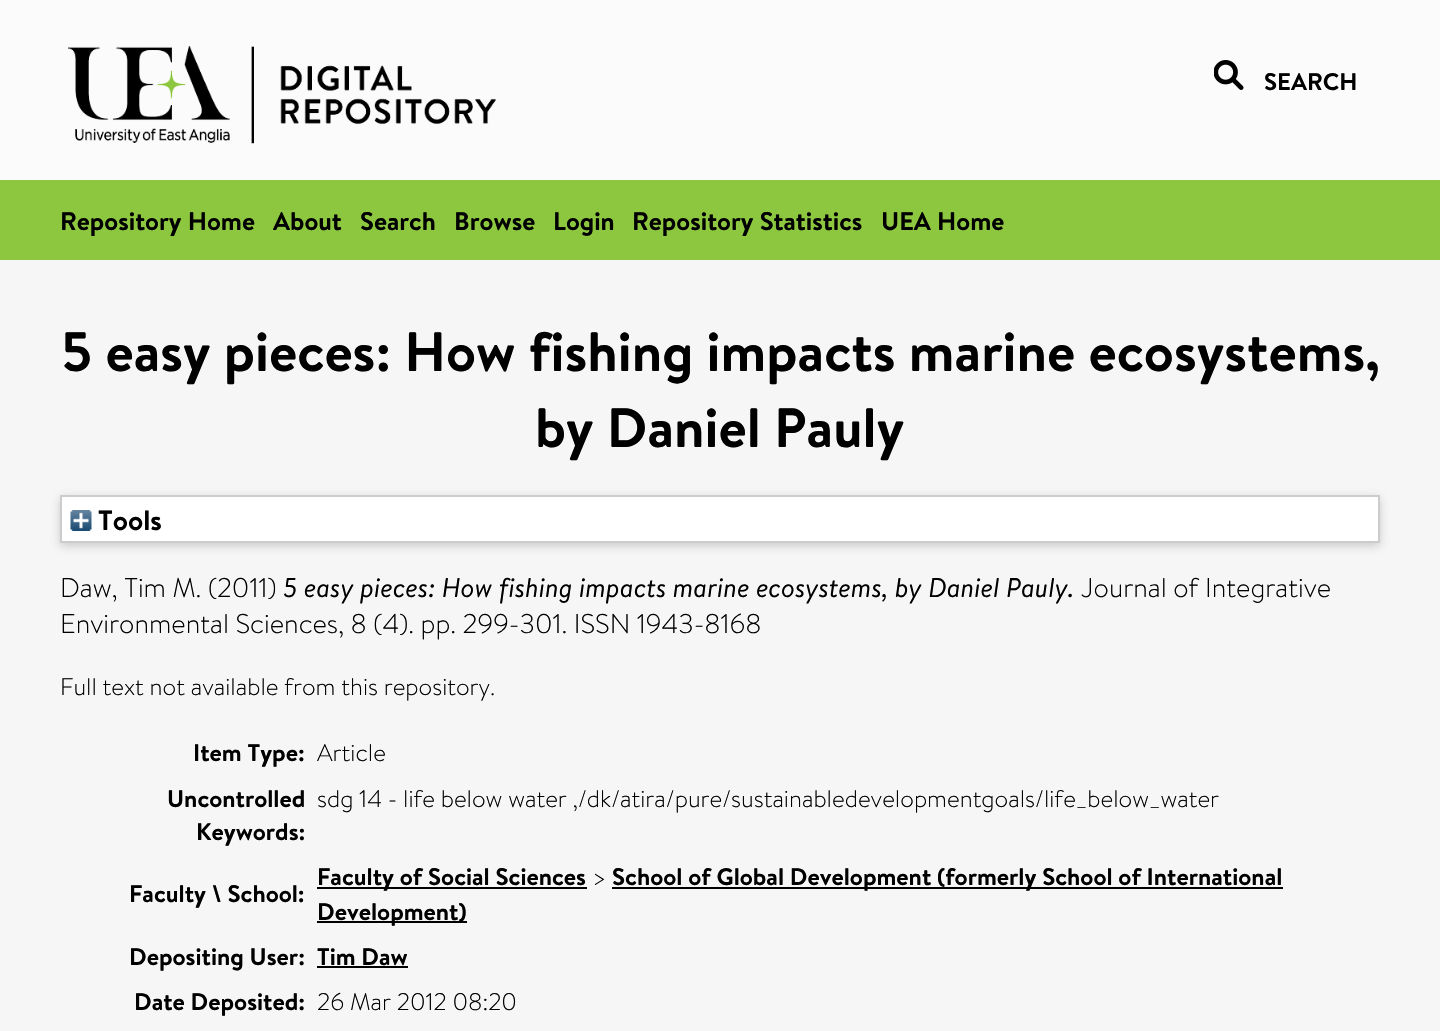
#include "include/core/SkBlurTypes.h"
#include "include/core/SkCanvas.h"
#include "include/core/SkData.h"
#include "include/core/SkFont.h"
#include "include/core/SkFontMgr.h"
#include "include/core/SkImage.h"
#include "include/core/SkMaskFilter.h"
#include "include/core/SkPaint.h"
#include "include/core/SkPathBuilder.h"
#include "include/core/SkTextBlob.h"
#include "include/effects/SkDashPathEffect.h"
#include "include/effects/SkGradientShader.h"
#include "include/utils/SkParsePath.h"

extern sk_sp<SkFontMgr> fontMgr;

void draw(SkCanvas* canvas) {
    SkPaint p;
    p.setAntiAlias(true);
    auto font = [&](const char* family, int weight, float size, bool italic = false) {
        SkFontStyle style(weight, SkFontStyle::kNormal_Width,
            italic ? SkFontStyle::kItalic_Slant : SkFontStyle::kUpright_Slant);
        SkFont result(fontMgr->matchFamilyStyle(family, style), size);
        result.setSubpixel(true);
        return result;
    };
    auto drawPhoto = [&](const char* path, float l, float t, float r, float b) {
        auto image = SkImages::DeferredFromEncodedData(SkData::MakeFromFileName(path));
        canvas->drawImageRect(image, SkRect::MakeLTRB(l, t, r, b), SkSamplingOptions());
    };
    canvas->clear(0xFFF6F6F6);
    p.setColor(0xFFFBFBFB);
    canvas->drawRect(SkRect::MakeLTRB(0, 0, 1440, 180), p);
    drawPhoto("media/1.png", 68, 46, 496, 144);
    drawPhoto("media/2.png", 1214, 60, 1244, 90);
    auto font1 = font("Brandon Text", 700, 24);
    p.setColor(0xFF000000);
    canvas->drawString("SEARCH", 1264, 90, font1, p);
    p.setColor(0xFF8DC63F);
    canvas->drawRect(SkRect::MakeLTRB(0, 180, 1440, 260), p);
    auto font2 = font("Brandon Text", 700, 25.5f);
    p.setColor(0xFF000000);
    {
        const struct { const char* s; float x, y; } items[] = {
            {"Repository Home", 60, 230},
            {"About", 273, 230},
            {"Search", 360, 230},
            {"Browse", 454, 230},
            {"Login", 553, 230},
            {"Repository Statistics", 632, 230},
            {"UEA Home", 881, 230},
        };
        for (auto [s, x, y] : items) {
            canvas->drawString(s, x, y, font2, p);
        }
    }
    auto font3 = font("Brandon Text", 700, 55.2f);
    canvas->drawString("5 easy pieces: How fishing impacts marine ecosystems,", 61, 371, font3, p);
    canvas->drawString("by Daniel Pauly", 535, 447, font3, p);
    p.setColor(0x4D646464);
    p.setMaskFilter(SkMaskFilter::MakeBlur(kNormal_SkBlurStyle, 4.5f));
    canvas->drawRect(SkRect::MakeLTRB(60, 498, 1380, 546), p);
    p.setMaskFilter(nullptr);
    p.setColor(0xFFFFFFFF);
    canvas->drawRect(SkRect::MakeLTRB(61, 496, 1379, 542), p);
    p.setStyle(SkPaint::kStroke_Style);
    p.setStrokeWidth(2);
    p.setColor(0xFFCCCCCC);
    canvas->drawRect(SkRect::MakeLTRB(61, 496, 1379, 542), p);
    drawPhoto("media/3.png", 70, 510, 92, 531);
    auto font4 = font("Brandon Text", 700, 28);
    p.setStyle(SkPaint::kFill_Style);
    p.setColor(0xFF000000);
    canvas->drawString("Tools", 98, 530, font4, p);
    auto font5 = font("Brandon Text", 300, 27);
    canvas->drawString("Daw, Tim M. (2011)", 60, 597, font5, p);
    auto font6 = font("Brandon Text", 400, 27, true);
    canvas->drawString("5 easy pieces: How fishing impacts marine ecosystems, by Daniel Pauly.", 283, 597, font6, p);
    canvas->drawString("Journal of Integrative", 1081, 597, font5, p);
    canvas->drawString("Environmental Sciences, 8 (4). pp. 299-301. ISSN 1943-8168", 60, 633, font5, p);
    auto font7 = font("Brandon Text", 300, 24);
    canvas->drawString("Full text not available from this repository.", 60, 695, font7, p);
    canvas->drawString("Item Type:", 193, 761, font1, p);
    canvas->drawString("Article", 317, 761, font7, p);
    canvas->drawString("Uncontrolled", 167, 807, font1, p);
    canvas->drawString("Keywords:", 196, 840, font1, p);
    canvas->drawString("sdg 14 - life below water ,/dk/atira/pure/sustainabledevelopmentgoals/life_below_water", 317, 807, font7, p);
    canvas->drawString("Faculty \\ School:", 129, 902, font1, p);
    canvas->drawRect(SkRect::MakeLTRB(317, 887, 587, 889), p);
    canvas->drawString("Faculty of Social Sciences", 317, 885, font1, p);
    canvas->drawString(">", 592, 885, font7, p);
    canvas->drawRect(SkRect::MakeLTRB(612, 887, 1283, 889), p);
    canvas->drawString("School of Global Development (formerly School of International", 612, 885, font1, p);
    canvas->drawRect(SkRect::MakeLTRB(317, 921, 467, 923), p);
    {
        const struct { const char* s; float x, y; } items[] = {
            {"Development)", 317, 920},
            {"Depositing User:", 129, 965},
            {"Tim Daw", 317, 965},
        };
        for (auto [s, x, y] : items) {
            canvas->drawString(s, x, y, font1, p);
        }
    }
    canvas->drawRect(SkRect::MakeLTRB(317, 966, 408, 968), p);
    canvas->drawString("Date Deposited:", 134, 1010, font1, p);
    canvas->drawString("26 Mar 2012 08:20", 317, 1010, font7, p);
}
